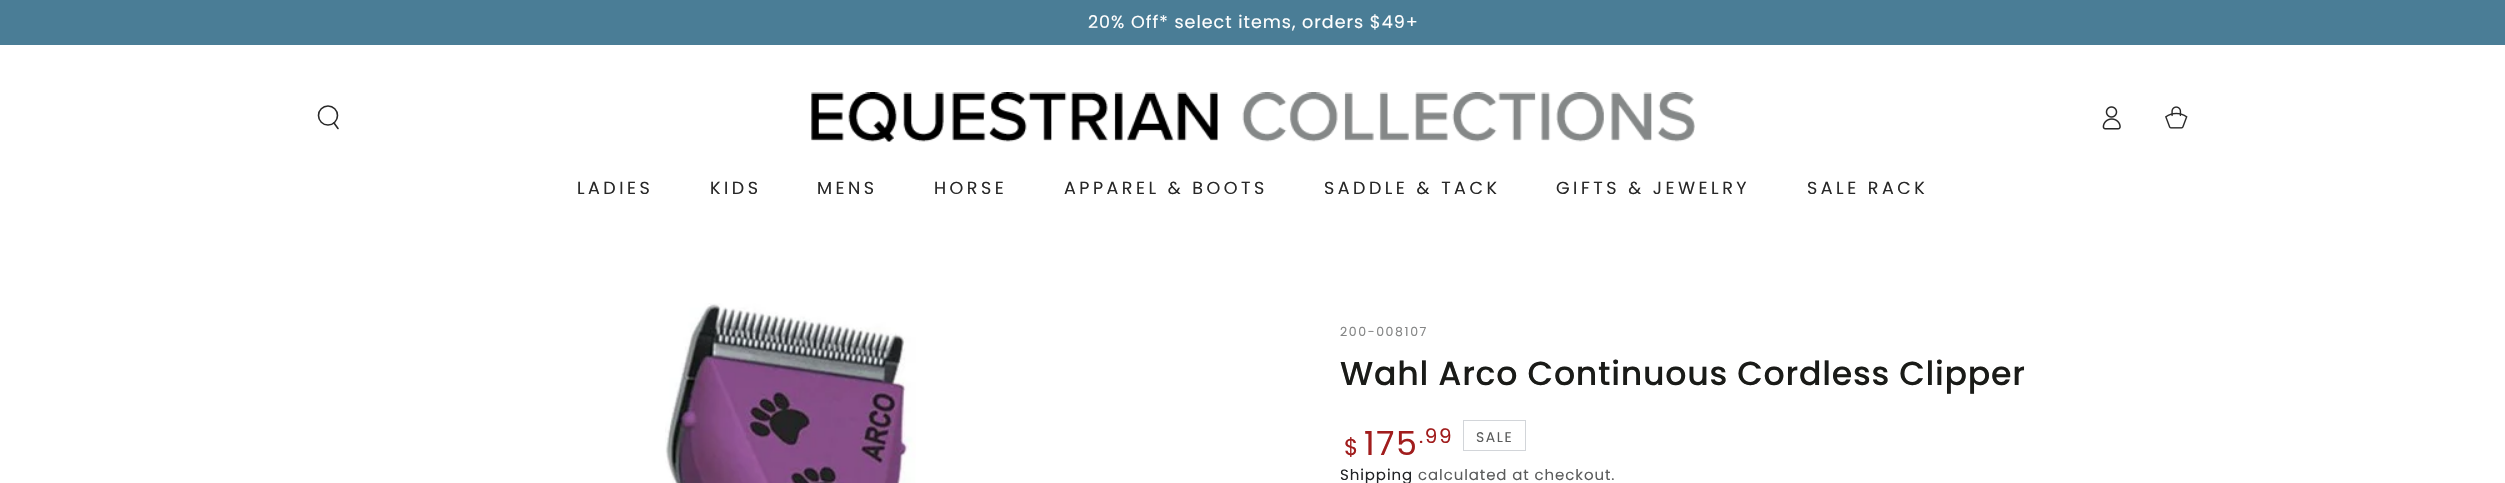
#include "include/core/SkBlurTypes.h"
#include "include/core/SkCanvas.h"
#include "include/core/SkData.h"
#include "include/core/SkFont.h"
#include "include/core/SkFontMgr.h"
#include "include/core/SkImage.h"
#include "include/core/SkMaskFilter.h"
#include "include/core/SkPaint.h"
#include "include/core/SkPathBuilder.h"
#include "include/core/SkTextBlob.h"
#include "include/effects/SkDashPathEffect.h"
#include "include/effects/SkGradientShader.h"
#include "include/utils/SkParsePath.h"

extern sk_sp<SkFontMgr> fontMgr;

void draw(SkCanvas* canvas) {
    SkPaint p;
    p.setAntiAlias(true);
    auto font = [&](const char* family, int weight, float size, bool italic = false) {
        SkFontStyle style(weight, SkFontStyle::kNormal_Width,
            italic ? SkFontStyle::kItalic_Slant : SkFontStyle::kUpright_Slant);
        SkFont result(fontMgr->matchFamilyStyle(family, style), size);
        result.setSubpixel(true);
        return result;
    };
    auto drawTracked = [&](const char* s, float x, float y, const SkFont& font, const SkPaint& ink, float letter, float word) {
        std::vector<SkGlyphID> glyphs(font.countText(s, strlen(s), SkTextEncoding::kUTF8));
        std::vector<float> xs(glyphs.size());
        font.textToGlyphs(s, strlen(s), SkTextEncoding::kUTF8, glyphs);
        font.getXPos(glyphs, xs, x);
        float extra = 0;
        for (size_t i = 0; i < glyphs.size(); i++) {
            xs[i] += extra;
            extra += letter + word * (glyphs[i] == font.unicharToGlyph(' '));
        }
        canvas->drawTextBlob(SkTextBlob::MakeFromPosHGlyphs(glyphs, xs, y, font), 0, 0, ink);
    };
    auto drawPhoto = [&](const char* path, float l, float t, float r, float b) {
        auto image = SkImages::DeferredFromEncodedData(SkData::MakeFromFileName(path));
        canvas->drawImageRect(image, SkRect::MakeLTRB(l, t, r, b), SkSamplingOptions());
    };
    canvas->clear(0xFFFFFFFF);
    p.setColor(0xFF4A7D96);
    canvas->drawRect(SkRect::MakeLTRB(0, 0, 2505, 45), p);
    auto font1 = font("Poppins", 400, 17.5f);
    p.setColor(0xFFFFFFFF);
    drawTracked("20% Off* select items, orders $49+", 1088, 28, font1, p, 1, 0);
    p.setStyle(SkPaint::kStroke_Style);
    p.setStrokeWidth(1.6f);
    p.setColor(0xFF282828);
    canvas->drawCircle(328, 115.5f, 9.5f, p);
    p.setStrokeCap(SkPaint::kRound_Cap);
    canvas->drawPath(SkPathBuilder().moveTo(334, 123).lineTo(338, 128.5f).detach(), p);
    drawPhoto("media/1.png", 811, 92, 1695, 142);
    drawPhoto("media/2.png", 2102, 106, 2121, 130);
    drawPhoto("media/3.png", 2165, 106, 2188, 129);
    p.setStyle(SkPaint::kFill_Style);
    {
        const struct { const char* s; float x, y; } items[] = {
            {"LADIES", 577, 194},
            {"KIDS", 710, 194},
            {"MENS", 817, 194},
            {"HORSE", 934, 194},
            {"APPAREL & BOOTS", 1064, 194},
            {"SADDLE & TACK", 1324, 194},
            {"GIFTS & JEWELRY", 1556, 194},
            {"SALE RACK", 1807, 194},
        };
        for (auto [s, x, y] : items) {
            drawTracked(s, x, y, font1, p, 3.5f, 0);
        }
    }
    drawPhoto("media/4.png", 665, 303, 916, 483);
    auto font2 = font("Poppins", 400, 12.5f);
    p.setColor(0xFF848585);
    drawTracked("200-008107", 1340, 336, font2, p, 1.6f, 0);
    auto font3 = font("Poppins", 500, 33.25f);
    p.setColor(0xFF1A1B18);
    drawTracked("Wahl Arco Continuous Cordless Clipper", 1340, 385, font3, p, 0.7f, 0);
    auto font4 = font("Poppins", 400, 23);
    p.setColor(0xFFA11D1D);
    drawTracked("$", 1344, 455, font4, p, 1.6f, 0);
    auto font5 = font("Poppins", 400, 33.25f);
    drawTracked("175", 1364, 455, font5, p, 1.6f, 0);
    auto font6 = font("Poppins", 400, 20);
    drawTracked(".99", 1419, 443, font6, p, 1.6f, 0);
    p.setStyle(SkPaint::kStroke_Style);
    p.setStrokeWidth(1);
    p.setStrokeCap(SkPaint::kButt_Cap);
    p.setColor(0xFFD2D5D9);
    canvas->drawRect(SkRect::MakeLTRB(1463.5f, 420.5f, 1525.5f, 450.5f), p);
    auto font7 = font("Poppins", 400, 14);
    p.setStyle(SkPaint::kFill_Style);
    p.setColor(0xFF5B5C5C);
    drawTracked("SALE", 1476, 442, font7, p, 1.6f, 0);
    auto font8 = font("Poppins", 400, 15);
    p.setColor(0xFF212326);
    drawTracked("Shipping", 1340, 480, font8, p, 0.9f, 0);
    p.setColor(0xFF5B5C5C);
    drawTracked("calculated at checkout.", 1418, 480, font8, p, 0.9f, 0);
}
